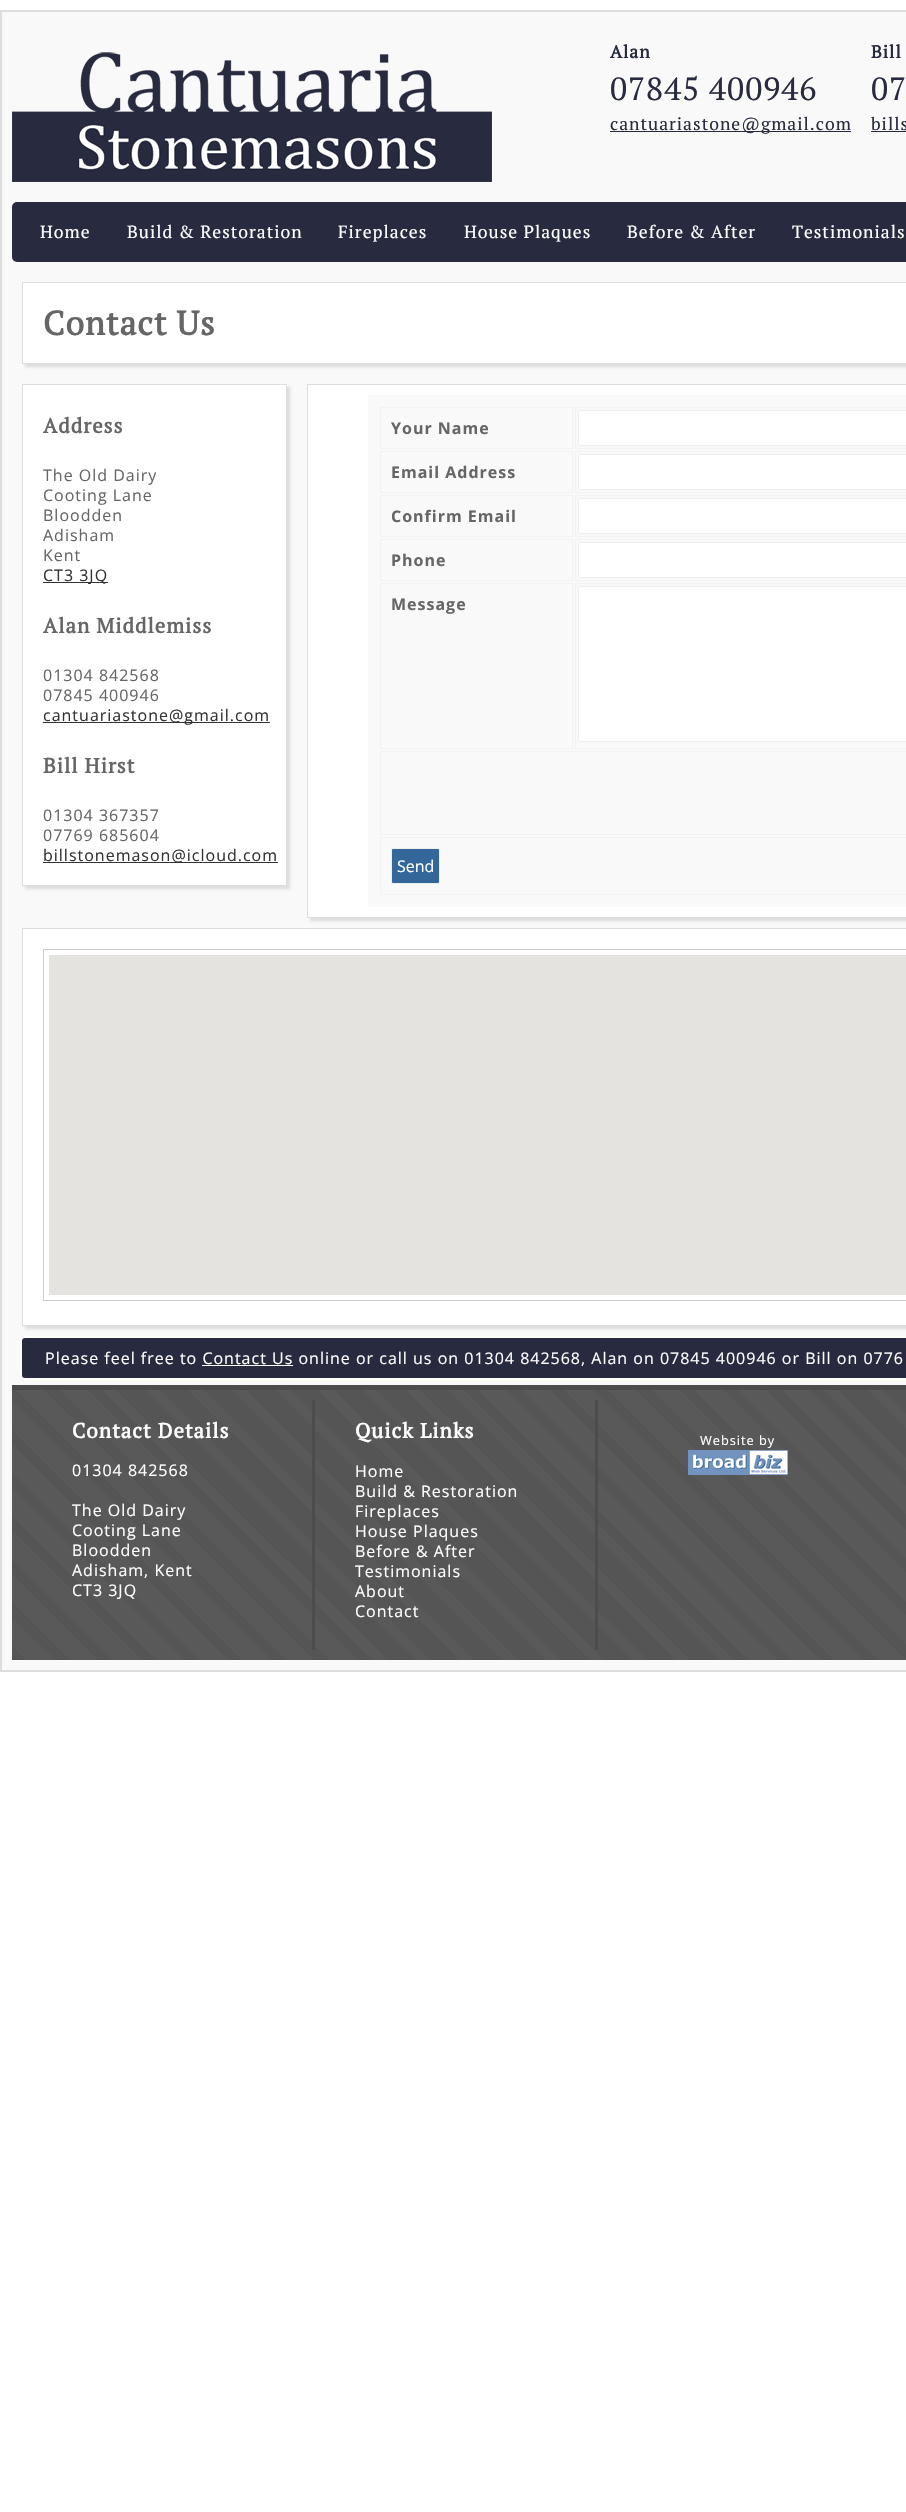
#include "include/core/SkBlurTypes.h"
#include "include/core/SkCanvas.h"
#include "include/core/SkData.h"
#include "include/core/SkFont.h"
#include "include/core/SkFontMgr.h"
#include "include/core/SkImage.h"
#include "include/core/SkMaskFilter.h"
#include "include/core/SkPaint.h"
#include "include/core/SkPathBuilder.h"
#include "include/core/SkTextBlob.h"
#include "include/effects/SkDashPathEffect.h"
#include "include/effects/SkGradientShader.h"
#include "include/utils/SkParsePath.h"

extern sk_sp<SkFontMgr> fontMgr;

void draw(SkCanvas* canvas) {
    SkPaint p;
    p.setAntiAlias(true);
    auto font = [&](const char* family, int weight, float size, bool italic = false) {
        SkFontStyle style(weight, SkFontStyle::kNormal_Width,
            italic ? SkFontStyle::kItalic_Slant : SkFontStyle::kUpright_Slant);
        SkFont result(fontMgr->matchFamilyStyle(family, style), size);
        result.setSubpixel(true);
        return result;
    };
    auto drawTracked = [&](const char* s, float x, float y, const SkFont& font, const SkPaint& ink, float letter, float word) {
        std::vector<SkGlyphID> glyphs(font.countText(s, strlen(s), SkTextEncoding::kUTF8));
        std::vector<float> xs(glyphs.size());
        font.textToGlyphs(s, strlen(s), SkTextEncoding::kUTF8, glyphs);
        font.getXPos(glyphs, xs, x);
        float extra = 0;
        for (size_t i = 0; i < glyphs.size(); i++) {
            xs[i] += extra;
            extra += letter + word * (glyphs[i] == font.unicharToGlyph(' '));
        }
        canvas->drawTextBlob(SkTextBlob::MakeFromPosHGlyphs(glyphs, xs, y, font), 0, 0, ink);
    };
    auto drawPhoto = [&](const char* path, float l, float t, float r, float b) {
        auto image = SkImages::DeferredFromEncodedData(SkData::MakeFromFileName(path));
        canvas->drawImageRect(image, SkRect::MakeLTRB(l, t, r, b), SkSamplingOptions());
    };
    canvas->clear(0xFFFFFFFF);
    p.setColor(0xFFF9F9F9);
    canvas->drawRect(SkRect::MakeLTRB(1, 11, 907, 1671), p);
    p.setStyle(SkPaint::kStroke_Style);
    p.setStrokeWidth(2);
    p.setColor(0xFFDDDDDD);
    canvas->drawRect(SkRect::MakeLTRB(1, 11, 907, 1671), p);
    drawPhoto("media/1.png", 12, 52, 492, 182);
    auto font1 = font("PT Serif", 700, 17.6f);
    p.setStyle(SkPaint::kFill_Style);
    p.setColor(0xFF282B3F);
    drawTracked("Alan", 610, 58, font1, p, 1, 0);
    auto font2 = font("PT Serif", 400, 32);
    drawTracked("07845 400946", 610, 100, font2, p, 1, 0);
    canvas->drawRect(SkRect::MakeLTRB(610, 131, 851, 132), p);
    auto font3 = font("PT Serif", 400, 17.6f);
    drawTracked("cantuariastone@gmail.com", 610, 130, font3, p, 1, 0);
    drawTracked("Bill", 871, 58, font1, p, 1, 0);
    drawTracked("07", 871, 100, font2, p, 1, 0);
    drawTracked("bills", 871, 130, font3, p, 1, 0);
    canvas->drawRect(SkRect::MakeLTRB(871, 131, 906, 132), p);
    canvas->drawRoundRect(SkRect::MakeLTRB(12, 202, 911, 262), 5, 5, p);
    p.setColor(0xFFFFFFFF);
    {
        const struct { const char* s; float x, y; } items[] = {
            {"Home", 40, 238},
            {"Build & Restoration", 127, 238},
            {"Fireplaces", 338, 238},
            {"House Plaques", 464, 238},
            {"Before & After", 627, 238},
            {"Testimonials", 792, 238},
        };
        for (auto [s, x, y] : items) {
            drawTracked(s, x, y, font3, p, 1, 0);
        }
    }
    p.setColor(0xFFDDDDDD);
    p.setMaskFilter(SkMaskFilter::MakeBlur(kNormal_SkBlurStyle, 1.5f));
    canvas->drawRect(SkRect::MakeLTRB(25, 285, 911, 367), p);
    p.setMaskFilter(nullptr);
    p.setColor(0xFFFFFFFF);
    canvas->drawRect(SkRect::MakeLTRB(22.5f, 282.5f, 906.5f, 363.5f), p);
    p.setStyle(SkPaint::kStroke_Style);
    p.setStrokeWidth(1);
    p.setColor(0xFFDDDDDD);
    canvas->drawRect(SkRect::MakeLTRB(22.5f, 282.5f, 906.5f, 363.5f), p);
    auto font4 = font("PT Serif", 700, 33.5f);
    p.setStyle(SkPaint::kFill_Style);
    p.setColor(0xFF666666);
    drawTracked("Contact Us", 43, 335, font4, p, 1, 0);
    p.setColor(0xFFDDDDDD);
    p.setMaskFilter(SkMaskFilter::MakeBlur(kNormal_SkBlurStyle, 1.5f));
    canvas->drawRect(SkRect::MakeLTRB(25, 387, 290, 889), p);
    p.setMaskFilter(nullptr);
    p.setColor(0xFFFFFFFF);
    canvas->drawRect(SkRect::MakeLTRB(22.5f, 384.5f, 286.5f, 885.5f), p);
    p.setStyle(SkPaint::kStroke_Style);
    p.setColor(0xFFDDDDDD);
    canvas->drawRect(SkRect::MakeLTRB(22.5f, 384.5f, 286.5f, 885.5f), p);
    auto font5 = font("PT Serif", 700, 20.75f);
    p.setStyle(SkPaint::kFill_Style);
    p.setColor(0xFF666666);
    drawTracked("Address", 43, 433, font5, p, 1, 0);
    auto font6 = font("Open Sans", 400, 16);
    {
        const struct { const char* s; float x, y; } items[] = {
            {"The Old Dairy", 43, 481},
            {"Cooting Lane", 43, 501},
            {"Bloodden", 43, 521},
            {"Adisham", 43, 541},
            {"Kent", 43, 561},
        };
        for (auto [s, x, y] : items) {
            drawTracked(s, x, y, font6, p, 1, 0);
        }
    }
    p.setColor(0xFF333333);
    canvas->drawRect(SkRect::MakeLTRB(43, 582, 108, 583), p);
    drawTracked("CT3 3JQ", 43, 581, font6, p, 1, 0);
    p.setColor(0xFF666666);
    drawTracked("Alan Middlemiss", 43, 633, font5, p, 1, 0);
    drawTracked("01304 842568", 43, 681, font6, p, 1, 0);
    drawTracked("07845 400946", 43, 701, font6, p, 1, 0);
    p.setColor(0xFF333333);
    canvas->drawRect(SkRect::MakeLTRB(43, 722, 270, 723), p);
    drawTracked("cantuariastone@gmail.com", 43, 721, font6, p, 1, 0);
    p.setColor(0xFF666666);
    drawTracked("Bill Hirst", 43, 773, font5, p, 1, 0);
    drawTracked("01304 367357", 43, 821, font6, p, 1, 0);
    drawTracked("07769 685604", 43, 841, font6, p, 1, 0);
    p.setColor(0xFF333333);
    canvas->drawRect(SkRect::MakeLTRB(43, 862, 278, 863), p);
    drawTracked("billstonemason@icloud.com", 43, 861, font6, p, 1, 0);
    p.setColor(0xFFDDDDDD);
    p.setMaskFilter(SkMaskFilter::MakeBlur(kNormal_SkBlurStyle, 1.5f));
    canvas->drawRect(SkRect::MakeLTRB(310, 387, 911, 921), p);
    p.setMaskFilter(nullptr);
    p.setColor(0xFFFFFFFF);
    canvas->drawRect(SkRect::MakeLTRB(307.5f, 384.5f, 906.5f, 917.5f), p);
    p.setStyle(SkPaint::kStroke_Style);
    p.setColor(0xFFDDDDDD);
    canvas->drawRect(SkRect::MakeLTRB(307.5f, 384.5f, 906.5f, 917.5f), p);
    p.setStyle(SkPaint::kFill_Style);
    p.setColor(0xFFF9F9F9);
    canvas->drawRect(SkRect::MakeLTRB(368, 395, 906, 907), p);
    p.setStyle(SkPaint::kStroke_Style);
    p.setColor(0xFFF3F3F3);
    canvas->drawRect(SkRect::MakeLTRB(380.5f, 407.5f, 572.5f, 448.5f), p);
    auto font7 = font("Open Sans", 700, 16);
    p.setStyle(SkPaint::kFill_Style);
    p.setColor(0xFF666666);
    drawTracked("Your Name", 391, 434, font7, p, 1, 0);
    p.setStyle(SkPaint::kStroke_Style);
    p.setColor(0xFFF3F3F3);
    canvas->drawRect(SkRect::MakeLTRB(575.5f, 407.5f, 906.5f, 448.5f), p);
    p.setStyle(SkPaint::kFill_Style);
    p.setColor(0xFFFFFFFF);
    canvas->drawRoundRect(SkRect::MakeLTRB(578.5f, 410.5f, 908.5f, 445.5f), 1.5f, 1.5f, p);
    p.setStyle(SkPaint::kStroke_Style);
    p.setColor(0xFFEEEEEE);
    canvas->drawRoundRect(SkRect::MakeLTRB(578.5f, 410.5f, 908.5f, 445.5f), 1.5f, 1.5f, p);
    p.setColor(0xFFF3F3F3);
    canvas->drawRect(SkRect::MakeLTRB(380.5f, 451.5f, 572.5f, 492.5f), p);
    p.setStyle(SkPaint::kFill_Style);
    p.setColor(0xFF666666);
    drawTracked("Email Address", 391, 478, font7, p, 1, 0);
    p.setStyle(SkPaint::kStroke_Style);
    p.setColor(0xFFF3F3F3);
    canvas->drawRect(SkRect::MakeLTRB(575.5f, 451.5f, 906.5f, 492.5f), p);
    p.setStyle(SkPaint::kFill_Style);
    p.setColor(0xFFFFFFFF);
    canvas->drawRoundRect(SkRect::MakeLTRB(578.5f, 454.5f, 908.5f, 489.5f), 1.5f, 1.5f, p);
    p.setStyle(SkPaint::kStroke_Style);
    p.setColor(0xFFEEEEEE);
    canvas->drawRoundRect(SkRect::MakeLTRB(578.5f, 454.5f, 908.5f, 489.5f), 1.5f, 1.5f, p);
    p.setColor(0xFFF3F3F3);
    canvas->drawRect(SkRect::MakeLTRB(380.5f, 495.5f, 572.5f, 536.5f), p);
    p.setStyle(SkPaint::kFill_Style);
    p.setColor(0xFF666666);
    drawTracked("Confirm Email", 391, 522, font7, p, 1, 0);
    p.setStyle(SkPaint::kStroke_Style);
    p.setColor(0xFFF3F3F3);
    canvas->drawRect(SkRect::MakeLTRB(575.5f, 495.5f, 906.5f, 536.5f), p);
    p.setStyle(SkPaint::kFill_Style);
    p.setColor(0xFFFFFFFF);
    canvas->drawRoundRect(SkRect::MakeLTRB(578.5f, 498.5f, 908.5f, 533.5f), 1.5f, 1.5f, p);
    p.setStyle(SkPaint::kStroke_Style);
    p.setColor(0xFFEEEEEE);
    canvas->drawRoundRect(SkRect::MakeLTRB(578.5f, 498.5f, 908.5f, 533.5f), 1.5f, 1.5f, p);
    p.setColor(0xFFF3F3F3);
    canvas->drawRect(SkRect::MakeLTRB(380.5f, 539.5f, 572.5f, 580.5f), p);
    p.setStyle(SkPaint::kFill_Style);
    p.setColor(0xFF666666);
    drawTracked("Phone", 391, 566, font7, p, 1, 0);
    p.setStyle(SkPaint::kStroke_Style);
    p.setColor(0xFFF3F3F3);
    canvas->drawRect(SkRect::MakeLTRB(575.5f, 539.5f, 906.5f, 580.5f), p);
    p.setStyle(SkPaint::kFill_Style);
    p.setColor(0xFFFFFFFF);
    canvas->drawRoundRect(SkRect::MakeLTRB(578.5f, 542.5f, 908.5f, 577.5f), 1.5f, 1.5f, p);
    p.setStyle(SkPaint::kStroke_Style);
    p.setColor(0xFFEEEEEE);
    canvas->drawRoundRect(SkRect::MakeLTRB(578.5f, 542.5f, 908.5f, 577.5f), 1.5f, 1.5f, p);
    p.setColor(0xFFF3F3F3);
    canvas->drawRect(SkRect::MakeLTRB(380.5f, 583.5f, 572.5f, 748.5f), p);
    p.setStyle(SkPaint::kFill_Style);
    p.setColor(0xFF666666);
    drawTracked("Message", 391, 610, font7, p, 1, 0);
    p.setStyle(SkPaint::kStroke_Style);
    p.setColor(0xFFF3F3F3);
    canvas->drawRect(SkRect::MakeLTRB(575.5f, 583.5f, 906.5f, 748.5f), p);
    p.setStyle(SkPaint::kFill_Style);
    p.setColor(0xFFFFFFFF);
    canvas->drawRoundRect(SkRect::MakeLTRB(578.5f, 586.5f, 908.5f, 741.5f), 1.5f, 1.5f, p);
    p.setStyle(SkPaint::kStroke_Style);
    p.setColor(0xFFEEEEEE);
    canvas->drawRoundRect(SkRect::MakeLTRB(578.5f, 586.5f, 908.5f, 741.5f), 1.5f, 1.5f, p);
    p.setColor(0xFFF3F3F3);
    canvas->drawRect(SkRect::MakeLTRB(380.5f, 751.5f, 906.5f, 834.5f), p);
    canvas->drawRect(SkRect::MakeLTRB(380.5f, 837.5f, 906.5f, 894.5f), p);
    p.setStyle(SkPaint::kFill_Style);
    p.setColor(0xFF336699);
    canvas->drawRoundRect(SkRect::MakeLTRB(391.5f, 848.5f, 439.5f, 883.5f), 1.5f, 1.5f, p);
    p.setStyle(SkPaint::kStroke_Style);
    p.setColor(0xFFEEEEEE);
    canvas->drawRoundRect(SkRect::MakeLTRB(391.5f, 848.5f, 439.5f, 883.5f), 1.5f, 1.5f, p);
    p.setStyle(SkPaint::kFill_Style);
    p.setColor(0xFFFFFFFF);
    canvas->drawString("Send", 397, 872, font6, p);
    p.setColor(0xFFDDDDDD);
    p.setMaskFilter(SkMaskFilter::MakeBlur(kNormal_SkBlurStyle, 1.5f));
    canvas->drawRect(SkRect::MakeLTRB(25, 931, 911, 1329), p);
    p.setMaskFilter(nullptr);
    p.setColor(0xFFFFFFFF);
    canvas->drawRect(SkRect::MakeLTRB(22.5f, 928.5f, 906.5f, 1325.5f), p);
    p.setStyle(SkPaint::kStroke_Style);
    p.setColor(0xFFDDDDDD);
    canvas->drawRect(SkRect::MakeLTRB(22.5f, 928.5f, 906.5f, 1325.5f), p);
    p.setColor(0xFFCCCCCC);
    canvas->drawRect(SkRect::MakeLTRB(43.5f, 949.5f, 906.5f, 1300.5f), p);
    p.setStyle(SkPaint::kFill_Style);
    p.setColor(0xFFE5E3DF);
    canvas->drawRect(SkRect::MakeLTRB(49, 955, 906, 1295), p);
    p.setColor(0xFF282B3F);
    canvas->drawRoundRect(SkRect::MakeLTRB(21, 1337, 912, 1379), 4, 4, p);
    p.setStyle(SkPaint::kStroke_Style);
    p.setStrokeWidth(2);
    p.setColor(0xFFFFFFFF);
    canvas->drawRoundRect(SkRect::MakeLTRB(21, 1337, 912, 1379), 4, 4, p);
    p.setStyle(SkPaint::kFill_Style);
    drawTracked("Please feel free to Contact Us online or call us on 01304 842568, Alan on 07845 400946 or Bill on 0776", 45, 1364, font6, p, 1, 0);
    canvas->drawRect(SkRect::MakeLTRB(202, 1365, 293, 1366), p);
    {
        const SkColor colors[] = {0xFF555555, 0xFF555555, 0xFF595959, 0xFF595959, 0xFF555555, 0xFF555555, 0xFF595959, 0xFF595959, 0xFF555555, 0xFF555555, 0xFF595959, 0xFF595959, 0xFF555555, 0xFF555555, 0xFF595959, 0xFF595959, 0xFF555555, 0xFF555555, 0xFF595959, 0xFF595959, 0xFF555555, 0xFF555555, 0xFF595959, 0xFF595959, 0xFF555555, 0xFF555555, 0xFF595959, 0xFF595959, 0xFF555555, 0xFF555555, 0xFF595959, 0xFF595959, 0xFF555555, 0xFF555555, 0xFF595959, 0xFF595959, 0xFF555555, 0xFF555555, 0xFF595959, 0xFF595959, 0xFF555555, 0xFF555555, 0xFF595959, 0xFF595959, 0xFF555555, 0xFF555555, 0xFF595959, 0xFF595959, 0xFF555555, 0xFF555555, 0xFF595959, 0xFF595959, 0xFF555555, 0xFF555555, 0xFF595959, 0xFF595959, 0xFF555555, 0xFF555555, 0xFF595959, 0xFF595959, 0xFF555555, 0xFF555555, 0xFF595959, 0xFF595959, 0xFF555555, 0xFF555555, 0xFF595959, 0xFF595959, 0xFF555555, 0xFF555555, 0xFF595959, 0xFF595959, 0xFF555555, 0xFF555555, 0xFF595959, 0xFF595959, 0xFF555555, 0xFF555555, 0xFF595959, 0xFF595959, 0xFF555555, 0xFF555555, 0xFF595959, 0xFF595959, 0xFF555555, 0xFF555555, 0xFF595959, 0xFF595959, 0xFF555555, 0xFF555555, 0xFF595959, 0xFF595959, 0xFF555555, 0xFF555555, 0xFF595959, 0xFF595959, 0xFF555555, 0xFF555555, 0xFF595959, 0xFF595959, 0xFF555555, 0xFF555555, 0xFF595959, 0xFF595959, 0xFF555555, 0xFF555555, 0xFF595959, 0xFF595959, 0xFF555555, 0xFF555555, 0xFF595959, 0xFF595959, 0xFF555555, 0xFF555555, 0xFF595959, 0xFF595959, 0xFF555555, 0xFF555555, 0xFF595959, 0xFF595959, 0xFF555555, 0xFF555555, 0xFF595959, 0xFF595959, 0xFF555555, 0xFF555555, 0xFF595959, 0xFF595959, 0xFF555555, 0xFF555555, 0xFF595959, 0xFF595959, 0xFF555555, 0xFF555555, 0xFF595959, 0xFF595959};
        const float stops[] = {0, 0.01f, 0.01f, 0.03f, 0.03f, 0.04f, 0.04f, 0.06f, 0.06f, 0.07f, 0.07f, 0.09f, 0.09f, 0.1f, 0.1f, 0.12f, 0.12f, 0.13f, 0.13f, 0.15f, 0.15f, 0.16f, 0.16f, 0.18f, 0.18f, 0.19f, 0.19f, 0.21f, 0.21f, 0.22f, 0.22f, 0.24f, 0.24f, 0.25f, 0.25f, 0.26f, 0.26f, 0.28f, 0.28f, 0.29f, 0.29f, 0.31f, 0.31f, 0.32f, 0.32f, 0.34f, 0.34f, 0.35f, 0.35f, 0.37f, 0.37f, 0.38f, 0.38f, 0.4f, 0.4f, 0.41f, 0.41f, 0.43f, 0.43f, 0.44f, 0.44f, 0.46f, 0.46f, 0.47f, 0.47f, 0.49f, 0.49f, 0.5f, 0.5f, 0.51f, 0.51f, 0.53f, 0.53f, 0.54f, 0.54f, 0.56f, 0.56f, 0.57f, 0.57f, 0.59f, 0.59f, 0.6f, 0.6f, 0.62f, 0.62f, 0.63f, 0.63f, 0.65f, 0.65f, 0.66f, 0.66f, 0.68f, 0.68f, 0.69f, 0.69f, 0.71f, 0.71f, 0.72f, 0.72f, 0.74f, 0.74f, 0.75f, 0.75f, 0.76f, 0.76f, 0.78f, 0.78f, 0.79f, 0.79f, 0.81f, 0.81f, 0.82f, 0.82f, 0.84f, 0.84f, 0.85f, 0.85f, 0.87f, 0.87f, 0.88f, 0.88f, 0.9f, 0.9f, 0.91f, 0.91f, 0.93f, 0.93f, 0.94f, 0.94f, 0.96f, 0.96f, 0.97f, 0.97f, 0.99f, 0.99f, 1};
        const SkPoint ends[] = {{230, 1878}, {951, 1156}};
        p.setShader(SkGradientShader::MakeLinear(ends, colors, stops, 136, SkTileMode::kClamp));
        p.setAlpha(255);
    }
    canvas->drawRect(SkRect::MakeLTRB(12, 1390, 906, 1660), p);
    p.setShader(nullptr);
    p.setColor(0xFF4C4C4C);
    canvas->drawRect(SkRect::MakeLTRB(12, 1385, 906, 1390), p);
    p.setColor(0xFFFFFFFF);
    drawTracked("Contact Details", 72, 1438, font5, p, 1, 0);
    {
        const struct { const char* s; float x, y; } items[] = {
            {"01304 842568", 72, 1476},
            {"The Old Dairy", 72, 1516},
            {"Cooting Lane", 72, 1536},
            {"Bloodden", 72, 1556},
            {"Adisham, Kent", 72, 1576},
            {"CT3 3JQ", 72, 1596},
        };
        for (auto [s, x, y] : items) {
            drawTracked(s, x, y, font6, p, 1, 0);
        }
    }
    p.setColor(0xFF4C4C4C);
    canvas->drawRect(SkRect::MakeLTRB(312, 1400, 315, 1650), p);
    p.setColor(0xFFFFFFFF);
    drawTracked("Quick Links", 355, 1438, font5, p, 1, 0);
    {
        const struct { const char* s; float x, y; } items[] = {
            {"Home", 355, 1477},
            {"Build & Restoration", 355, 1497},
            {"Fireplaces", 355, 1517},
            {"House Plaques", 355, 1537},
            {"Before & After", 355, 1557},
            {"Testimonials", 355, 1577},
            {"About", 355, 1597},
            {"Contact", 355, 1617},
        };
        for (auto [s, x, y] : items) {
            drawTracked(s, x, y, font6, p, 1, 0);
        }
    }
    p.setColor(0xFF4C4C4C);
    canvas->drawRect(SkRect::MakeLTRB(595, 1400, 598, 1650), p);
    auto font8 = font("Open Sans", 400, 12.75f);
    p.setColor(0xFFFFFFFF);
    drawTracked("Website by", 700, 1445, font8, p, 1, 0);
    drawPhoto("media/2.png", 688, 1450, 788, 1475);
}
